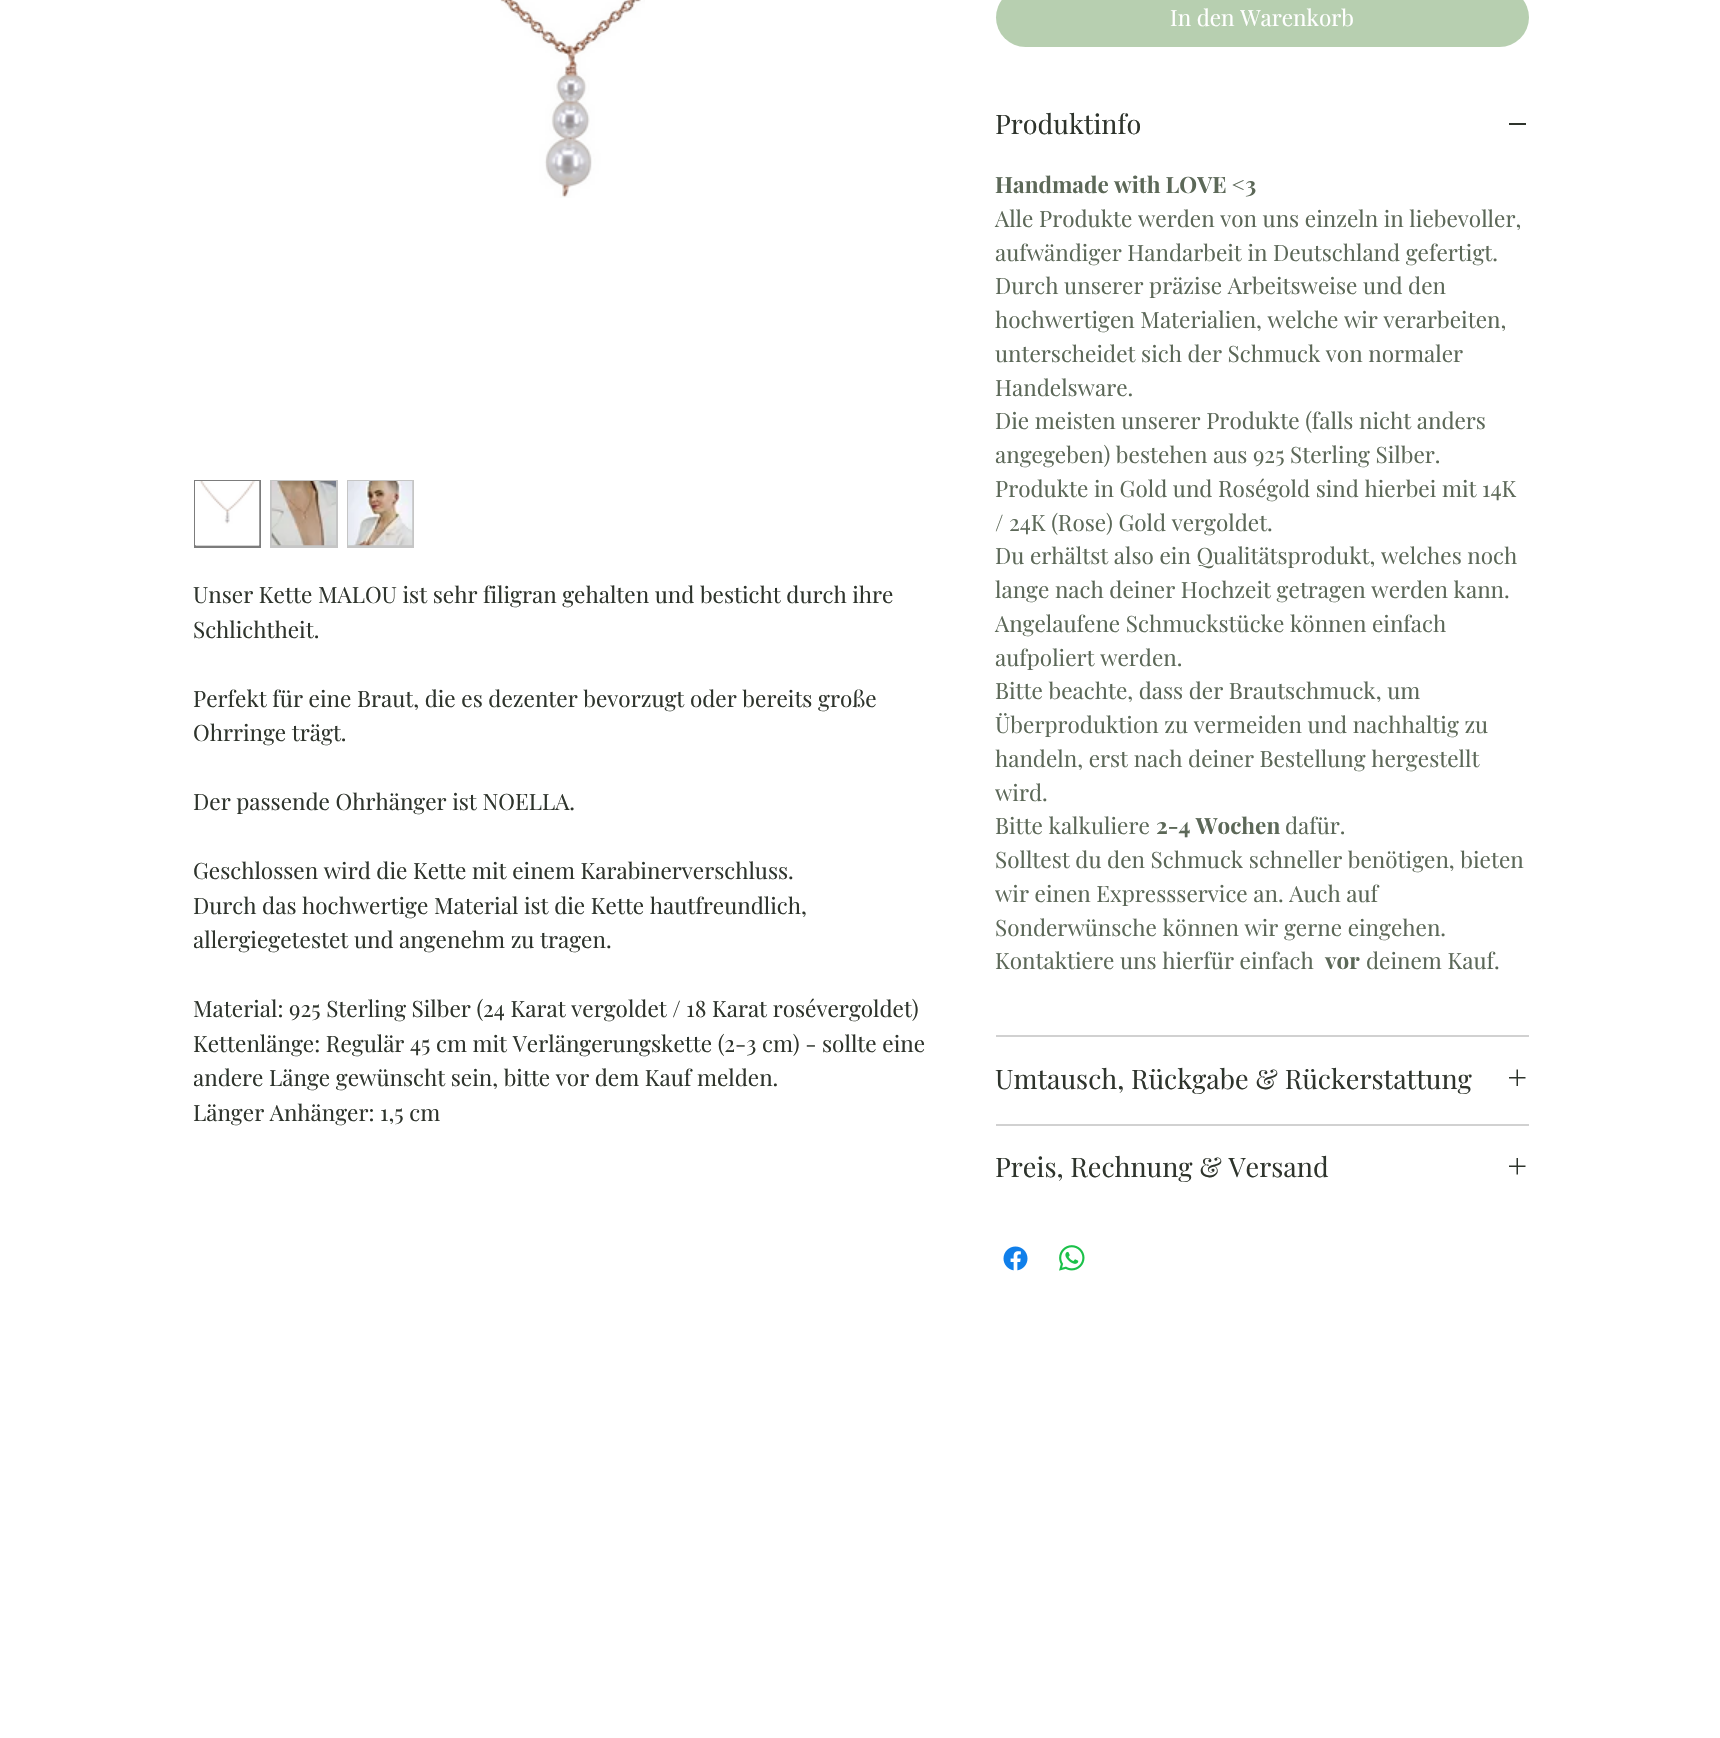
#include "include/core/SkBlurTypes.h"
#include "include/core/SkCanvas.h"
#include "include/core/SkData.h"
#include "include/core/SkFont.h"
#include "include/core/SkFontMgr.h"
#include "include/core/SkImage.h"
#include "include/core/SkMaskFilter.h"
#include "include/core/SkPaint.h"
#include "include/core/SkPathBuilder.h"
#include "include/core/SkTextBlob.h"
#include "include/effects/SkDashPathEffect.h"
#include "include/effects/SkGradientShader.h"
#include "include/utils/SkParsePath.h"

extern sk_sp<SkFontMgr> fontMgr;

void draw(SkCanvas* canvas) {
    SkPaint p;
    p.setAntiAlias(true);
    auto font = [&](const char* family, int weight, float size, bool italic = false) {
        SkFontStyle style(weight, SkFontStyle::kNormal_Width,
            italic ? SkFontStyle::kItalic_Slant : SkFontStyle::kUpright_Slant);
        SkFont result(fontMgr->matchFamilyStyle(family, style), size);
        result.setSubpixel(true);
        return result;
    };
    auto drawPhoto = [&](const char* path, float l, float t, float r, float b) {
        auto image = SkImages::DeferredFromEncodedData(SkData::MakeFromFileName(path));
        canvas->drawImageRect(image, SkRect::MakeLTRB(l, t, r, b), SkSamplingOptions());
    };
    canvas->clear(0xFFFFFFFF);
    drawPhoto("media/1.png", 500, 0, 645, 198);
    p.setColor(0xFFC5C5C5);
    canvas->drawRect(SkRect::MakeLTRB(196, 545, 259, 546), p);
    p.setStyle(SkPaint::kStroke_Style);
    p.setStrokeWidth(2);
    p.setColor(0xFF7C7C7C);
    canvas->drawRect(SkRect::MakeLTRB(195, 481, 260, 547), p);
    drawPhoto("media/2.png", 195, 481, 260, 546);
    p.setStyle(SkPaint::kFill_Style);
    p.setColor(0xFFC5C5C5);
    canvas->drawRect(SkRect::MakeLTRB(270, 480, 338, 548), p);
    drawPhoto("media/3.png", 271, 481, 336, 546);
    canvas->drawRect(SkRect::MakeLTRB(347, 480, 414, 548), p);
    drawPhoto("media/4.png", 348, 481, 413, 546);
    auto font1 = font("Playfair Display", 400, 22.5f);
    p.setColor(0xFF2E342C);
    {
        const struct { const char* s; float x, y; } items[] = {
            {"Unser Kette MALOU ist sehr filigran gehalten und besticht durch ihre", 193, 603},
            {"Schlichtheit.", 193, 638},
            {"Perfekt für eine Braut, die es dezenter bevorzugt oder bereits große", 193, 707},
            {"Ohrringe trägt.", 193, 741},
            {"Der passende Ohrhänger ist NOELLA.", 193, 810},
            {"Geschlossen wird die Kette mit einem Karabinerverschluss.", 193, 879},
            {"Durch das hochwertige Material ist die Kette hautfreundlich,", 193, 914},
        };
        for (auto [s, x, y] : items) {
            canvas->drawString(s, x, y, font1, p);
        }
    }
    canvas->save();
    canvas->clipRect(SkRect::MakeLTRB(194, 578, 944, 1130));
    canvas->drawString("allergiegetestet und angenehm zu tragen.", 193, 948, font1, p);
    canvas->restore();
    canvas->drawString("Material: 925 Sterling Silber (24 Karat vergoldet / 18 Karat rosévergoldet)", 193, 1017, font1, p);
    canvas->drawString("Kettenlänge: Regulär 45 cm mit Verlängerungskette (2-3 cm) - sollte eine", 193, 1052, font1, p);
    canvas->save();
    canvas->clipRect(SkRect::MakeLTRB(194, 578, 944, 1130));
    canvas->drawString("andere Länge gewünscht sein, bitte vor dem Kauf melden.", 193, 1086, font1, p);
    canvas->restore();
    canvas->drawString("Länger Anhänger: 1,5 cm", 193, 1121, font1, p);
    p.setColor(0xFFB7CFB0);
    canvas->drawRoundRect(SkRect::MakeLTRB(996, -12, 1529, 47), 29.5f, 29.5f, p);
    p.setColor(0xFFFFFFFF);
    canvas->drawString("In den Warenkorb", 1170, 26, font1, p);
    p.setColor(0xFFD1D1D1);
    canvas->drawRect(SkRect::MakeLTRB(996, 1035, 1529, 1037), p);
    auto font2 = font("Playfair Display", 400, 27);
    p.setColor(0xFF2E342C);
    canvas->drawString("Produktinfo", 995, 134, font2, p);
    canvas->drawRect(SkRect::MakeLTRB(1509, 123, 1526, 125), p);
    auto font3 = font("Playfair Display", 700, 22.5f);
    p.setColor(0xFF5C6858);
    canvas->drawString("Handmade with LOVE <3", 995, 193, font3, p);
    {
        const struct { const char* s; float x, y; } items[] = {
            {"Alle Produkte werden von uns einzeln in liebevoller,", 995, 227},
            {"aufwändiger Handarbeit in Deutschland gefertigt.", 995, 261},
            {"Durch unserer präzise Arbeitsweise und den", 995, 294},
            {"hochwertigen Materialien, welche wir verarbeiten,", 995, 328},
            {"unterscheidet sich der Schmuck von normaler", 995, 362},
            {"Handelsware.", 995, 396},
            {"Die meisten unserer Produkte (falls nicht anders", 995, 429},
            {"angegeben) bestehen aus 925 Sterling Silber.", 995, 463},
            {"Produkte in Gold und Roségold sind hierbei mit 14K", 995, 497},
            {"/ 24K (Rose) Gold vergoldet.", 995, 531},
            {"Du erhältst also ein Qualitätsprodukt, welches noch", 995, 564},
            {"lange nach deiner Hochzeit getragen werden kann.", 995, 598},
            {"Angelaufene Schmuckstücke können einfach", 995, 632},
            {"aufpoliert werden.", 995, 666},
            {"Bitte beachte, dass der Brautschmuck, um", 995, 699},
            {"Überproduktion zu vermeiden und nachhaltig zu", 995, 733},
            {"handeln, erst nach deiner Bestellung hergestellt", 995, 767},
            {"wird.", 995, 801},
            {"Bitte kalkuliere", 995, 834},
        };
        for (auto [s, x, y] : items) {
            canvas->drawString(s, x, y, font1, p);
        }
    }
    canvas->drawString("2-4 Wochen", 1156, 834, font3, p);
    {
        const struct { const char* s; float x, y; } items[] = {
            {"dafür.", 1285, 834},
            {"Solltest du den Schmuck schneller benötigen, bieten", 995, 868},
            {"wir einen Expressservice an. Auch auf", 995, 902},
            {"Sonderwünsche können wir gerne eingehen.", 995, 936},
            {"Kontaktiere uns hierfür einfach", 995, 969},
        };
        for (auto [s, x, y] : items) {
            canvas->drawString(s, x, y, font1, p);
        }
    }
    canvas->drawString("vor", 1325, 969, font3, p);
    canvas->drawString("deinem Kauf.", 1366, 969, font1, p);
    p.setColor(0xFFD1D1D1);
    canvas->drawRect(SkRect::MakeLTRB(996, 1124, 1529, 1126), p);
    p.setColor(0xFF2E342C);
    canvas->drawString("Umtausch, Rückgabe & Rückerstattung", 995, 1089, font2, p);
    drawPhoto("media/5.png", 1509, 1069, 1526, 1086);
    canvas->drawString("Preis, Rechnung & Versand", 995, 1177, font2, p);
    drawPhoto("media/6.png", 1509, 1158, 1526, 1175);
    drawPhoto("media/7.png", 1003, 1246, 1028, 1271);
    drawPhoto("media/8.png", 1059, 1245, 1085, 1271);
}
